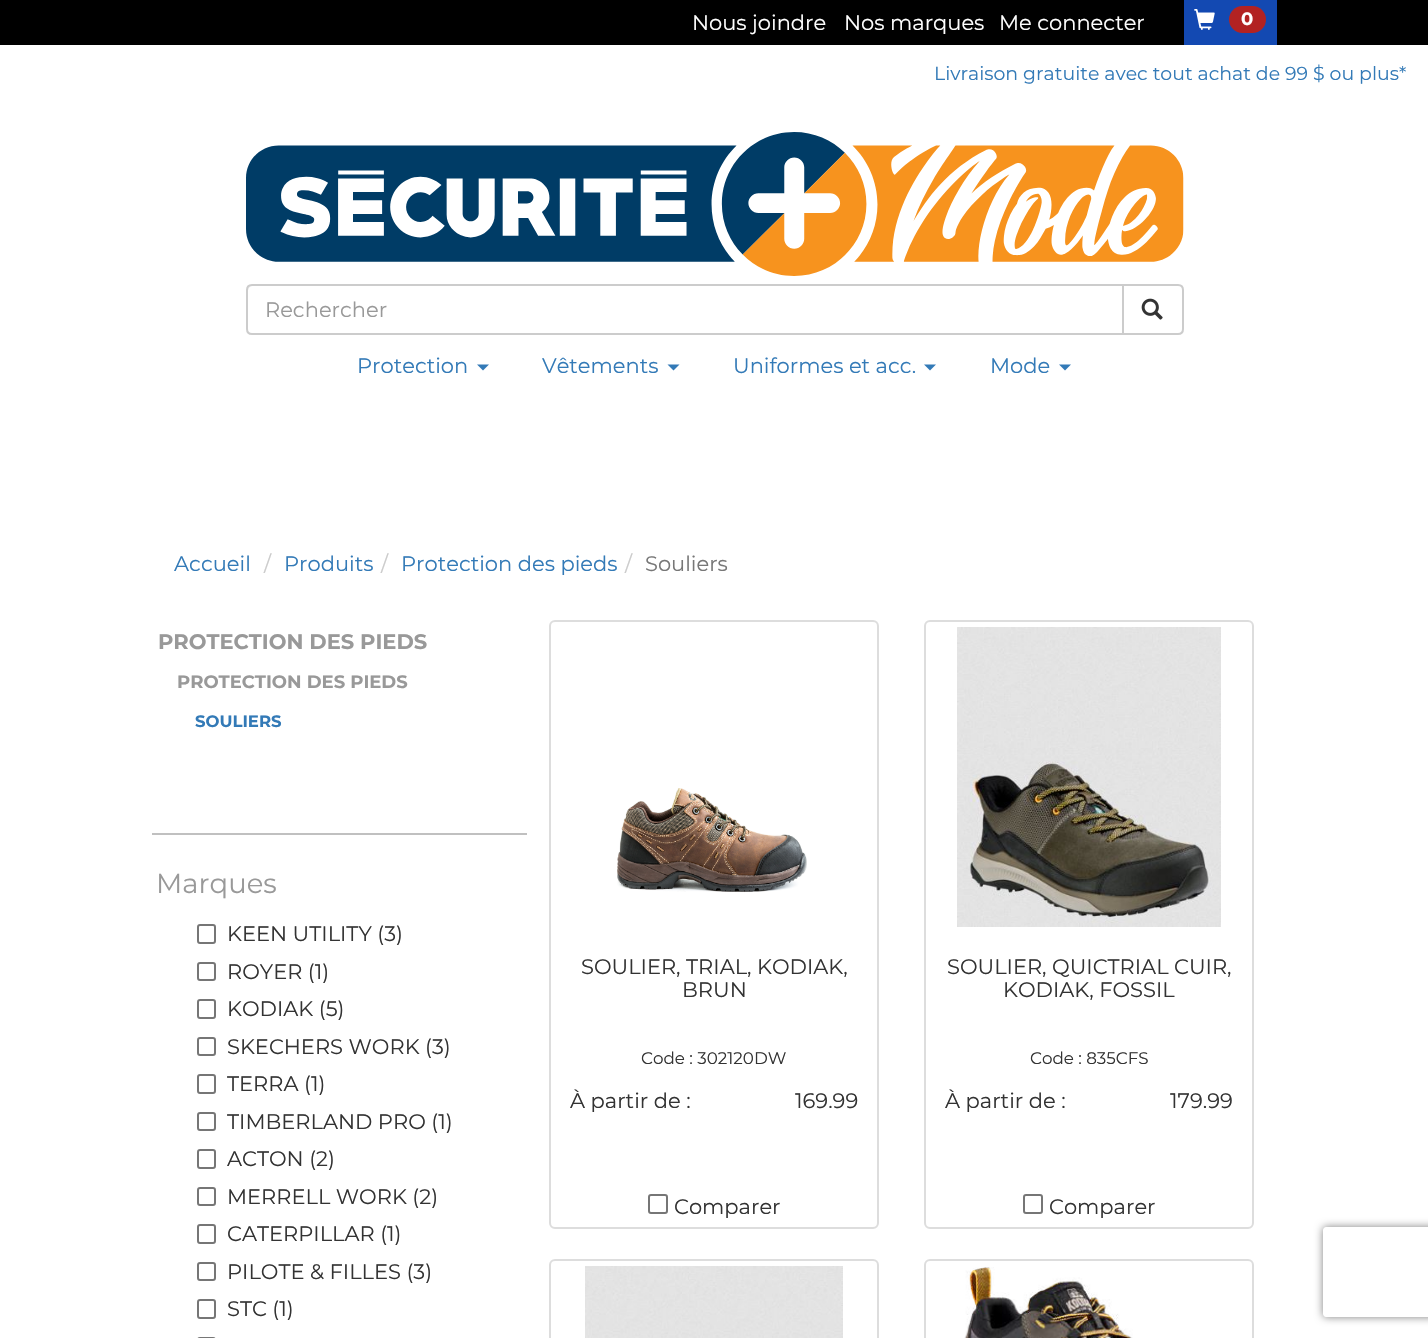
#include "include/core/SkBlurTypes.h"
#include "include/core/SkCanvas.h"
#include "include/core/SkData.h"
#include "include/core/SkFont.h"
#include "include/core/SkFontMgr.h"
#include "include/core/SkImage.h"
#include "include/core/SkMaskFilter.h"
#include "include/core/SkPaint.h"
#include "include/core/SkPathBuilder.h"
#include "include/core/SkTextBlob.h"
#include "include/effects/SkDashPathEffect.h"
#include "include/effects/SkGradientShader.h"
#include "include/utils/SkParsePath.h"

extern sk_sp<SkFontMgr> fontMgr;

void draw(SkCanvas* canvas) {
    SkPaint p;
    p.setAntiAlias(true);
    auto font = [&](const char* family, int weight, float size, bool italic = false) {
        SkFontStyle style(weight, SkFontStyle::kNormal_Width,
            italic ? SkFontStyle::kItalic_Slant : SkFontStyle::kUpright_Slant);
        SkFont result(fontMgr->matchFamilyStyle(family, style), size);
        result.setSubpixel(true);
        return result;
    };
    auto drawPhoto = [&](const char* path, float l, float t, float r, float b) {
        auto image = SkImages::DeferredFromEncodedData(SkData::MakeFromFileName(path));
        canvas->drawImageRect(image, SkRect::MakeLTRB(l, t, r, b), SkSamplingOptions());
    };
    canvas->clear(0xFFFFFFFF);
    p.setColor(0xFF000000);
    canvas->drawRect(SkRect::MakeLTRB(0, 0, 1428, 45), p);
    auto font1 = font("Montserrat", 400, 21);
    p.setColor(0xFFFFFFFF);
    {
        const struct { const char* s; float x, y; } items[] = {
            {"Nous joindre", 692, 30},
            {"Nos marques", 844, 30},
            {"Me connecter", 999, 30},
        };
        for (auto [s, x, y] : items) {
            canvas->drawString(s, x, y, font1, p);
        }
    }
    p.setColor(0xFF1349B2);
    canvas->drawRect(SkRect::MakeLTRB(1184, 0, 1277, 45), p);
    drawPhoto("media/1.png", 1194, 9, 1215, 30);
    p.setColor(0xFFB22222);
    canvas->drawRoundRect(SkRect::MakeLTRB(1229, 6, 1266, 33), 13.5f, 13.5f, p);
    auto font2 = font("Montserrat", 700, 18);
    p.setColor(0xFFFFFFFF);
    canvas->drawString("0", 1241, 25, font2, p);
    auto font3 = font("Montserrat", 400, 18.9f);
    p.setColor(0xFF337AB7);
    canvas->drawString("Livraison gratuite avec tout achat de 99 $ ou plus*", 934, 80, font3, p);
    drawPhoto("media/2.png", 246, 132, 1184, 276);
    p.setColor(0xFFECECEC);
    canvas->drawPath(SkPathBuilder().moveTo(252, 286).lineTo(1122, 286).lineTo(1122, 285).lineTo(253, 285).cubicTo(250, 285, 248, 287, 248, 290).lineTo(248, 291).cubicTo(248, 289, 250, 286, 252, 286).close().detach(), p);
    p.setStyle(SkPaint::kStroke_Style);
    p.setStrokeWidth(2);
    p.setColor(0xFFCCCCCC);
    canvas->drawPath(SkPathBuilder().moveTo(252, 285).lineTo(1123, 285).lineTo(1123, 334).lineTo(252, 334).cubicTo(249, 334, 247, 332, 247, 329).lineTo(247, 290).cubicTo(247, 287, 249, 285, 252, 285).close().detach(), p);
    p.setStyle(SkPaint::kFill_Style);
    p.setColor(0xFF999999);
    canvas->drawString("Rechercher", 265, 317, font1, p);
    p.setColor(0xFFFFFFFF);
    canvas->drawPath(SkPathBuilder().moveTo(1123, 285).lineTo(1178, 285).cubicTo(1181, 285, 1183, 287, 1183, 290).lineTo(1183, 329).cubicTo(1183, 332, 1181, 334, 1178, 334).lineTo(1123, 334).close().detach(), p);
    p.setStyle(SkPaint::kStroke_Style);
    p.setColor(0xFFCCCCCC);
    canvas->drawPath(SkPathBuilder().moveTo(1123, 285).lineTo(1178, 285).cubicTo(1181, 285, 1183, 287, 1183, 290).lineTo(1183, 329).cubicTo(1183, 332, 1181, 334, 1178, 334).lineTo(1123, 334).close().detach(), p);
    drawPhoto("media/3.png", 1141, 298, 1163, 320);
    p.setStyle(SkPaint::kFill_Style);
    p.setColor(0xFF337AB7);
    canvas->drawString("Protection", 357, 373, font1, p);
    canvas->drawPath(SkPathBuilder().moveTo(477, 364.5f).lineTo(489, 364.5f).lineTo(483, 370.5f).close().detach(), p);
    canvas->drawString("Vêtements", 542, 373, font1, p);
    canvas->drawPath(SkPathBuilder().moveTo(667.5f, 364.5f).lineTo(679.5f, 364.5f).lineTo(673.5f, 370.5f).close().detach(), p);
    canvas->drawString("Uniformes et acc.", 733, 373, font1, p);
    canvas->drawPath(SkPathBuilder().moveTo(924, 364.5f).lineTo(936, 364.5f).lineTo(930, 370.5f).close().detach(), p);
    canvas->drawString("Mode", 990, 373, font1, p);
    canvas->drawPath(SkPathBuilder().moveTo(1059, 364.5f).lineTo(1071, 364.5f).lineTo(1065, 370.5f).close().detach(), p);
    canvas->drawString("Accueil", 174, 571, font1, p);
    p.setColor(0xFFCCCCCC);
    canvas->drawString("/", 264, 571, font1, p);
    p.setColor(0xFF337AB7);
    canvas->drawString("Produits", 284, 571, font1, p);
    p.setColor(0xFFCCCCCC);
    canvas->drawString("/", 381, 571, font1, p);
    p.setColor(0xFF337AB7);
    canvas->drawString("Protection des pieds", 401, 571, font1, p);
    p.setColor(0xFFCCCCCC);
    canvas->drawString("/", 625, 571, font1, p);
    p.setColor(0xFF777777);
    canvas->drawString("Souliers", 645, 571, font1, p);
    auto font4 = font("Montserrat", 700, 21);
    p.setColor(0xFF999999);
    canvas->drawString("PROTECTION DES PIEDS", 158, 649, font4, p);
    canvas->drawString("PROTECTION DES PIEDS", 177, 688, font2, p);
    auto font5 = font("Montserrat", 700, 16.5f);
    p.setColor(0xFF337AB7);
    canvas->drawString("SOULIERS", 195, 727, font5, p);
    p.setColor(0xFFC0C0C0);
    canvas->drawRect(SkRect::MakeLTRB(152, 833, 527, 835), p);
    auto font6 = font("Montserrat", 400, 27.5f);
    p.setColor(0xFF999999);
    canvas->drawString("Marques", 156, 893, font6, p);
    p.setStyle(SkPaint::kStroke_Style);
    p.setColor(0xFF767676);
    canvas->drawRoundRect(SkRect::MakeLTRB(198, 925, 215, 943), 2, 2, p);
    p.setStyle(SkPaint::kFill_Style);
    p.setColor(0xFF333333);
    canvas->drawString("KEEN UTILITY (3)", 227, 941, font1, p);
    p.setStyle(SkPaint::kStroke_Style);
    p.setColor(0xFF767676);
    canvas->drawRoundRect(SkRect::MakeLTRB(198, 963, 215, 980), 2, 2, p);
    p.setStyle(SkPaint::kFill_Style);
    p.setColor(0xFF333333);
    canvas->drawString("ROYER (1)", 227, 979, font1, p);
    p.setStyle(SkPaint::kStroke_Style);
    p.setColor(0xFF767676);
    canvas->drawRoundRect(SkRect::MakeLTRB(198, 1000, 215, 1018), 2, 2, p);
    p.setStyle(SkPaint::kFill_Style);
    p.setColor(0xFF333333);
    canvas->drawString("KODIAK (5)", 227, 1016, font1, p);
    p.setStyle(SkPaint::kStroke_Style);
    p.setColor(0xFF767676);
    canvas->drawRoundRect(SkRect::MakeLTRB(198, 1038, 215, 1055), 2, 2, p);
    p.setStyle(SkPaint::kFill_Style);
    p.setColor(0xFF333333);
    canvas->drawString("SKECHERS WORK (3)", 227, 1054, font1, p);
    p.setStyle(SkPaint::kStroke_Style);
    p.setColor(0xFF767676);
    canvas->drawRoundRect(SkRect::MakeLTRB(198, 1075, 215, 1093), 2, 2, p);
    p.setStyle(SkPaint::kFill_Style);
    p.setColor(0xFF333333);
    canvas->drawString("TERRA (1)", 227, 1091, font1, p);
    p.setStyle(SkPaint::kStroke_Style);
    p.setColor(0xFF767676);
    canvas->drawRoundRect(SkRect::MakeLTRB(198, 1113, 215, 1130), 2, 2, p);
    p.setStyle(SkPaint::kFill_Style);
    p.setColor(0xFF333333);
    canvas->drawString("TIMBERLAND PRO (1)", 227, 1129, font1, p);
    p.setStyle(SkPaint::kStroke_Style);
    p.setColor(0xFF767676);
    canvas->drawRoundRect(SkRect::MakeLTRB(198, 1150, 215, 1168), 2, 2, p);
    p.setStyle(SkPaint::kFill_Style);
    p.setColor(0xFF333333);
    canvas->drawString("ACTON (2)", 227, 1166, font1, p);
    p.setStyle(SkPaint::kStroke_Style);
    p.setColor(0xFF767676);
    canvas->drawRoundRect(SkRect::MakeLTRB(198, 1188, 215, 1205), 2, 2, p);
    p.setStyle(SkPaint::kFill_Style);
    p.setColor(0xFF333333);
    canvas->drawString("MERRELL WORK (2)", 227, 1204, font1, p);
    p.setStyle(SkPaint::kStroke_Style);
    p.setColor(0xFF767676);
    canvas->drawRoundRect(SkRect::MakeLTRB(198, 1225, 215, 1243), 2, 2, p);
    p.setStyle(SkPaint::kFill_Style);
    p.setColor(0xFF333333);
    canvas->drawString("CATERPILLAR (1)", 227, 1241, font1, p);
    p.setStyle(SkPaint::kStroke_Style);
    p.setColor(0xFF767676);
    canvas->drawRoundRect(SkRect::MakeLTRB(198, 1263, 215, 1280), 2, 2, p);
    p.setStyle(SkPaint::kFill_Style);
    p.setColor(0xFF333333);
    canvas->drawString("PILOTE & FILLES (3)", 227, 1279, font1, p);
    p.setStyle(SkPaint::kStroke_Style);
    p.setColor(0xFF767676);
    canvas->drawRoundRect(SkRect::MakeLTRB(198, 1300, 215, 1318), 2, 2, p);
    p.setStyle(SkPaint::kFill_Style);
    p.setColor(0xFF333333);
    canvas->drawString("STC (1)", 227, 1316, font1, p);
    p.setStyle(SkPaint::kStroke_Style);
    p.setColor(0xFF767676);
    canvas->drawRoundRect(SkRect::MakeLTRB(198, 1338, 215, 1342), 2, 2, p);
    p.setColor(0xFFDDDDDD);
    canvas->drawRoundRect(SkRect::MakeLTRB(550, 621, 878, 1228), 5, 5, p);
    drawPhoto("media/4.png", 617, 788, 807, 892);
    p.setStyle(SkPaint::kFill_Style);
    p.setColor(0xFF333333);
    canvas->drawString("SOULIER, TRIAL, KODIAK,", 581, 974, font1, p);
    canvas->drawString("BRUN", 682, 997, font1, p);
    auto font7 = font("Montserrat", 400, 16.75f);
    canvas->drawString("Code : 302120DW", 641, 1064, font7, p);
    canvas->drawString("À partir de :", 570, 1108, font1, p);
    canvas->drawString("169.99", 795, 1108, font1, p);
    p.setStyle(SkPaint::kStroke_Style);
    p.setColor(0xFF767676);
    canvas->drawRoundRect(SkRect::MakeLTRB(649, 1195, 667, 1213), 2, 2, p);
    p.setStyle(SkPaint::kFill_Style);
    p.setColor(0xFF333333);
    canvas->drawString("Comparer", 674, 1214, font1, p);
    p.setStyle(SkPaint::kStroke_Style);
    p.setColor(0xFFDDDDDD);
    canvas->drawRoundRect(SkRect::MakeLTRB(925, 621, 1253, 1228), 5, 5, p);
    drawPhoto("media/5.png", 957, 627, 1221, 927);
    p.setStyle(SkPaint::kFill_Style);
    p.setColor(0xFF333333);
    canvas->drawString("SOULIER, QUICTRIAL CUIR,", 947, 974, font1, p);
    canvas->drawString("KODIAK, FOSSIL", 1003, 997, font1, p);
    canvas->drawString("Code : 835CFS", 1030, 1064, font7, p);
    canvas->drawString("À partir de :", 945, 1108, font1, p);
    canvas->drawString("179.99", 1170, 1108, font1, p);
    p.setStyle(SkPaint::kStroke_Style);
    p.setColor(0xFF767676);
    canvas->drawRoundRect(SkRect::MakeLTRB(1024, 1195, 1042, 1213), 2, 2, p);
    p.setStyle(SkPaint::kFill_Style);
    p.setColor(0xFF333333);
    canvas->drawString("Comparer", 1049, 1214, font1, p);
    p.setStyle(SkPaint::kStroke_Style);
    p.setColor(0xFFDDDDDD);
    canvas->drawRoundRect(SkRect::MakeLTRB(550, 1260, 878, 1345), 5, 5, p);
    drawPhoto("media/6.png", 585, 1266, 843, 1338);
    canvas->drawRoundRect(SkRect::MakeLTRB(925, 1260, 1253, 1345), 5, 5, p);
    drawPhoto("media/7.png", 964, 1267, 1133, 1338);
    canvas->save();
    canvas->clipPath(SkPathBuilder(SkPathFillType::kEvenOdd).moveTo(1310, 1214).lineTo(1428, 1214).lineTo(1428, 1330).lineTo(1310, 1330).close().moveTo(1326, 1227).lineTo(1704, 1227).cubicTo(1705.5f, 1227, 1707, 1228.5f, 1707, 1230).lineTo(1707, 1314).cubicTo(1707, 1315.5f, 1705.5f, 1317, 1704, 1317).lineTo(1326, 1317).cubicTo(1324.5f, 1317, 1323, 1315.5f, 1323, 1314).lineTo(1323, 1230).cubicTo(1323, 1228.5f, 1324.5f, 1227, 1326, 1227).close().detach(), true);
    p.setStyle(SkPaint::kFill_Style);
    p.setColor(0xFF808080);
    p.setMaskFilter(SkMaskFilter::MakeBlur(kNormal_SkBlurStyle, 4));
    canvas->drawRoundRect(SkRect::MakeLTRB(1323, 1227, 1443, 1317), 3, 3, p);
    p.setMaskFilter(nullptr);
    canvas->restore();
}
